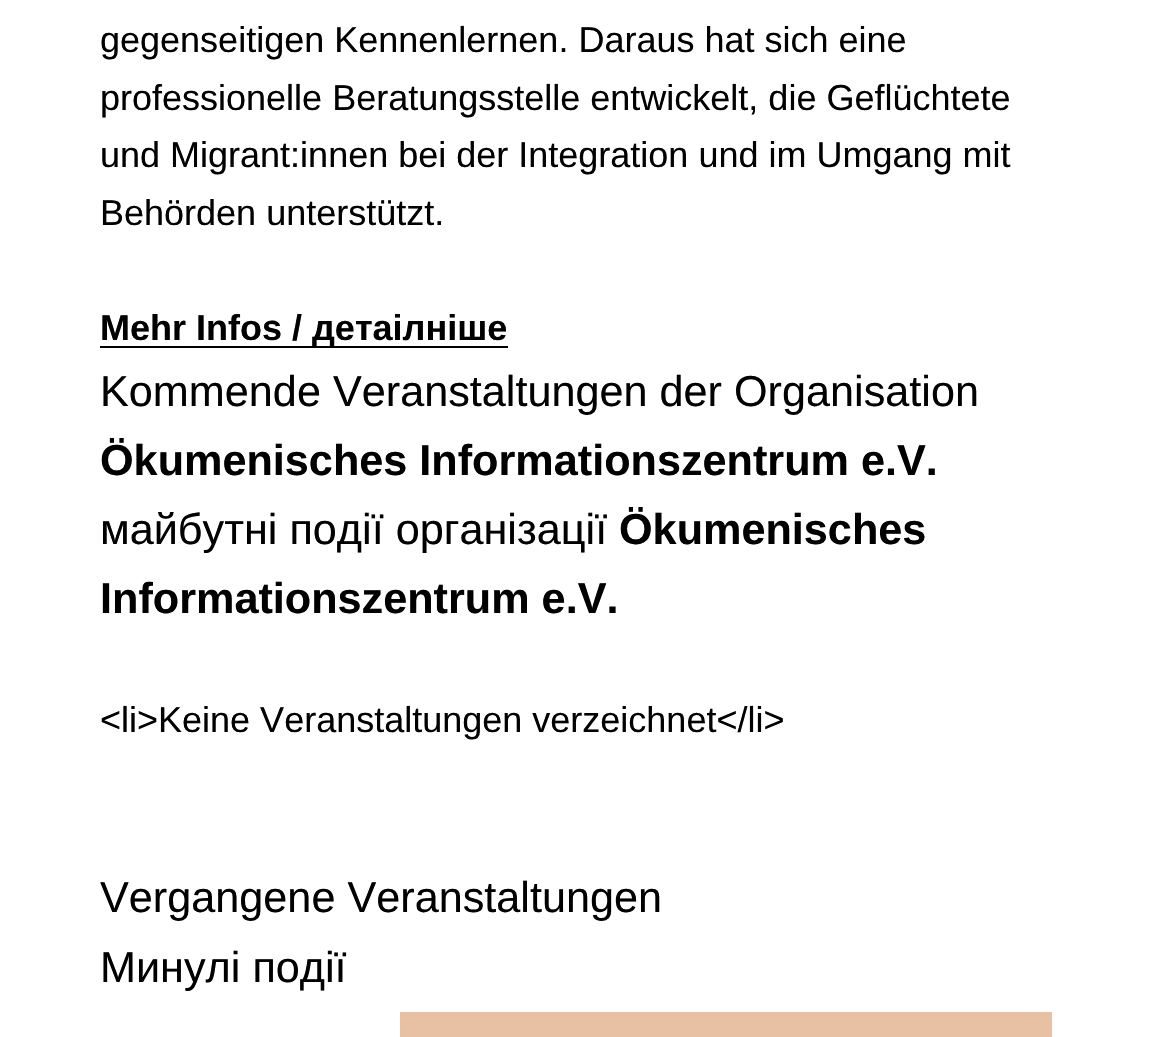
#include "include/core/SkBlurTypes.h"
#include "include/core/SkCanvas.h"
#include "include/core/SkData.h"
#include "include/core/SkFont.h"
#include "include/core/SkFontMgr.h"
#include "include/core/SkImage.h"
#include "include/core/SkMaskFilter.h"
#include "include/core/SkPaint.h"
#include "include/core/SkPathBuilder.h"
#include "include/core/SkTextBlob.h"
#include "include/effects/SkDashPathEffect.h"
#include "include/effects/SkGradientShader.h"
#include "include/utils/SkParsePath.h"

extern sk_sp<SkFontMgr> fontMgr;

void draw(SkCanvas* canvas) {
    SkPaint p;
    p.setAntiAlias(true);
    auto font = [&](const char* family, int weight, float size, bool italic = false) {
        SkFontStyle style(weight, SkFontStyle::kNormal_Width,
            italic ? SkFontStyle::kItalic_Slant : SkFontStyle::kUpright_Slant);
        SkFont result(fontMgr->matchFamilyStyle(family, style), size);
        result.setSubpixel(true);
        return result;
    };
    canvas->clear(0xFFFFFFFF);
    auto font1 = font("Liberation Sans", 400, 36);
    p.setColor(0xFF000000);
    {
        const struct { const char* s; float x, y; } items[] = {
            {"gegenseitigen Kennenlernen. Daraus hat sich eine", 100, 52},
            {"professionelle Beratungsstelle entwickelt, die Geflüchtete", 100, 110},
            {"und Migrant:innen bei der Integration und im Umgang mit", 100, 167},
            {"Behörden unterstützt.", 100, 225},
        };
        for (auto [s, x, y] : items) {
            canvas->drawString(s, x, y, font1, p);
        }
    }
    canvas->drawRect(SkRect::MakeLTRB(100, 346, 508, 348), p);
    auto font2 = font("Liberation Sans", 700, 36);
    canvas->drawString("Mehr Infos / детаілніше", 100, 340, font2, p);
    auto font3 = font("Liberation Sans", 400, 43.2f);
    canvas->drawString("Kommende Veranstaltungen der Organisation", 100, 406, font3, p);
    auto font4 = font("Liberation Sans", 700, 43.2f);
    canvas->drawString("Ökumenisches Informationszentrum e.V.", 100, 475, font4, p);
    canvas->drawString("майбутні події організації", 100, 544, font3, p);
    canvas->drawString("Ökumenisches", 619, 544, font4, p);
    canvas->drawString("Informationszentrum e.V.", 100, 613, font4, p);
    canvas->drawString("<li>Keine Veranstaltungen verzeichnet</li>", 100, 732, font1, p);
    canvas->drawString("Vergangene Veranstaltungen", 100, 912, font3, p);
    canvas->drawString("Минулі події", 100, 982, font3, p);
    p.setColor(0xFFE8C1A4);
    canvas->drawRect(SkRect::MakeLTRB(400, 1012, 1052, 1037), p);
}
